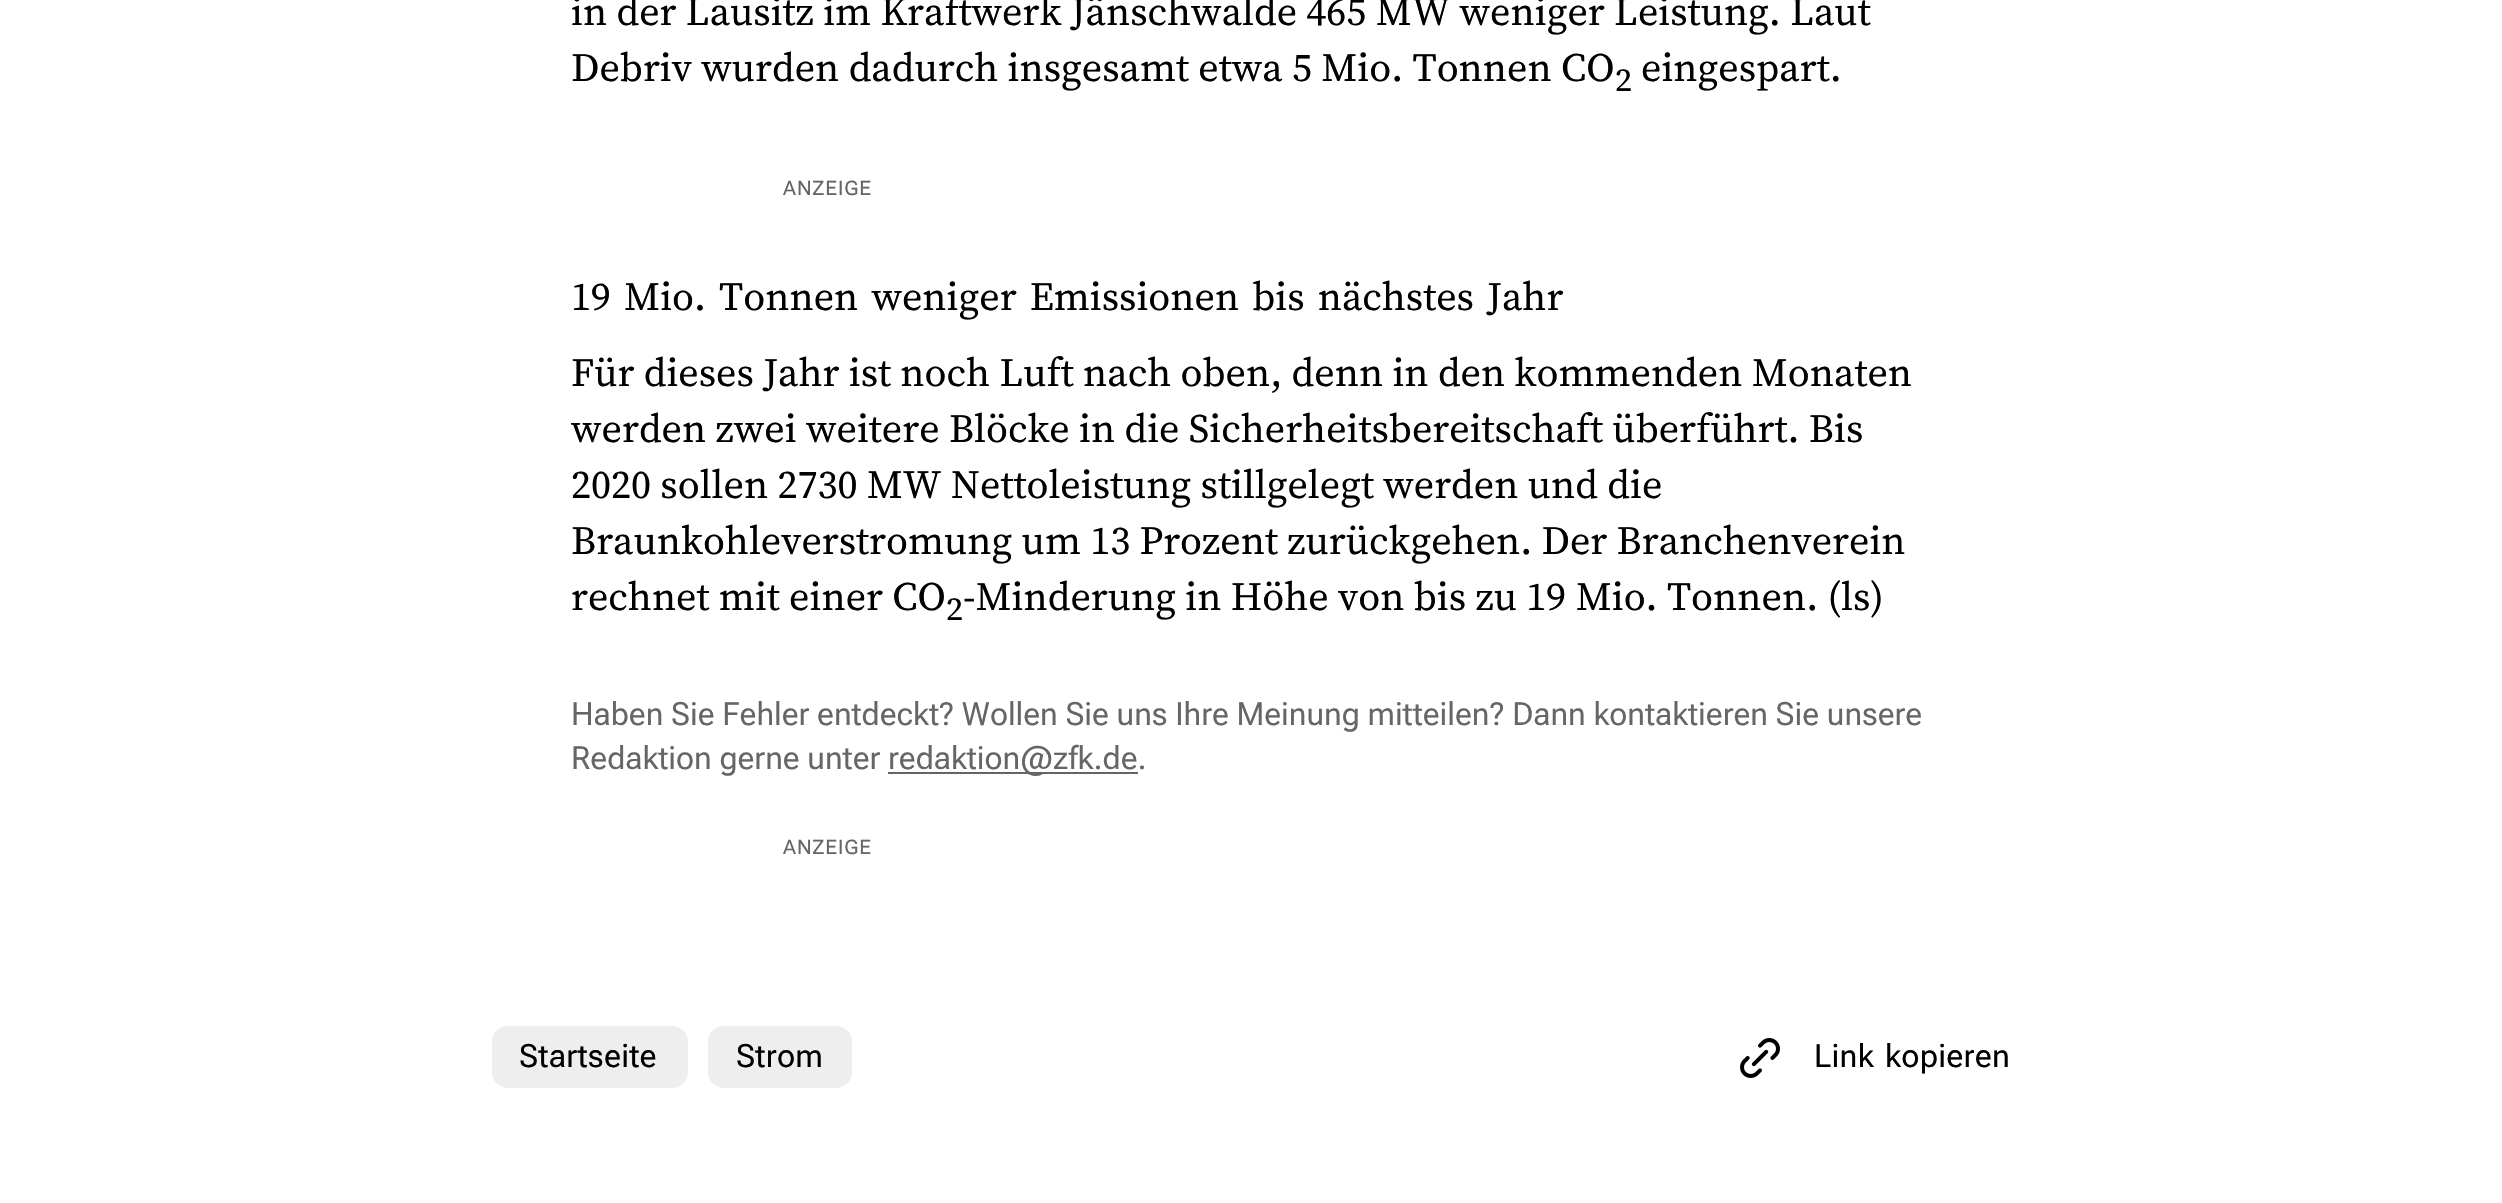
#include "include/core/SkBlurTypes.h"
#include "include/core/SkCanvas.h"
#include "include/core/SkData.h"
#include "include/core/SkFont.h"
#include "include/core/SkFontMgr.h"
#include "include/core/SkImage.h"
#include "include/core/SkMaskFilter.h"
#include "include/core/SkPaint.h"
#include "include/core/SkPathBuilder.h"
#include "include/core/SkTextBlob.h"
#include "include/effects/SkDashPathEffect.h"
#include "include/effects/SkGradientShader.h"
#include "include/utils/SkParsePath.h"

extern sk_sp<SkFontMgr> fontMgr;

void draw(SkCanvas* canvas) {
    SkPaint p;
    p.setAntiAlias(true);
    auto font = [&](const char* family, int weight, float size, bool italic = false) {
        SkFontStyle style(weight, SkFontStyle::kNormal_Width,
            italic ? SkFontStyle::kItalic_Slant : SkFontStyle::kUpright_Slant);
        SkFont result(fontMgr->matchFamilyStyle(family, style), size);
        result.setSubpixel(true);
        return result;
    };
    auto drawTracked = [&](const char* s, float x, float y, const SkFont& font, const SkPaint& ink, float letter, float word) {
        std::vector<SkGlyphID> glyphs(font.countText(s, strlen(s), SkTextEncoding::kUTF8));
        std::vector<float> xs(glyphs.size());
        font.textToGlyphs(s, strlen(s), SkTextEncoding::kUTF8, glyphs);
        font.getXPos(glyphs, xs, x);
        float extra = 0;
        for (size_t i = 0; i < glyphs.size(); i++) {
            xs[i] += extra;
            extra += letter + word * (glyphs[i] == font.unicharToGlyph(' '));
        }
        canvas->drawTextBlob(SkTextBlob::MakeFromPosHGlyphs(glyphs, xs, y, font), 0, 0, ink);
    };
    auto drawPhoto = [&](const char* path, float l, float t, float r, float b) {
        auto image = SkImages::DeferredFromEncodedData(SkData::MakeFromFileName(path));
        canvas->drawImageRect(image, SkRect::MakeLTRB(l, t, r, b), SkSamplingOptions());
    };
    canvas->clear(0xFFFFFFFF);
    auto font1 = font("Source Serif 4", 400, 40);
    p.setColor(0xFF000000);
    canvas->drawString("in der Lausitz im Kraftwerk Jänschwalde 465 MW weniger Leistung. Laut", 571, 25, font1, p);
    canvas->drawString("Debriv wurden dadurch insgesamt etwa 5 Mio. Tonnen CO", 571, 81, font1, p);
    auto font2 = font("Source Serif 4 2", 400, 33);
    canvas->drawString("2", 1615, 91, font2, p);
    canvas->drawString("eingespart.", 1641, 81, font1, p);
    auto font3 = font("Roboto Flex", 400, 20);
    p.setColor(0xFF666666);
    drawTracked("ANZEIGE", 783, 195, font3, p, 1, 0);
    p.setColor(0xFF000000);
    drawTracked("19 Mio. Tonnen weniger Emissionen bis nächstes Jahr", 571, 310, font1, p, 0, 3.75f);
    {
        const struct { const char* s; float x, y; } items[] = {
            {"Für dieses Jahr ist noch Luft nach oben, denn in den kommenden Monaten", 571, 386},
            {"werden zwei weitere Blöcke in die Sicherheitsbereitschaft überführt. Bis", 571, 442},
            {"2020 sollen 2730 MW Nettoleistung stillgelegt werden und die", 571, 498},
            {"Braunkohleverstromung um 13 Prozent zurückgehen. Der Branchenverein", 571, 554},
            {"rechnet mit einer CO", 571, 610},
        };
        for (auto [s, x, y] : items) {
            canvas->drawString(s, x, y, font1, p);
        }
    }
    canvas->drawString("2", 946, 620, font2, p);
    canvas->drawString("-Minderung in Höhe von bis zu 19 Mio. Tonnen. (ls)", 963, 610, font1, p);
    auto font4 = font("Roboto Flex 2", 400, 32);
    p.setColor(0xFF666666);
    canvas->drawString("Haben Sie Fehler entdeckt? Wollen Sie uns Ihre Meinung mitteilen? Dann kontaktieren Sie unsere", 571, 725, font4, p);
    canvas->drawString("Redaktion gerne unter", 571, 769, font4, p);
    p.setColor(0xFF646464);
    canvas->drawRect(SkRect::MakeLTRB(888, 772, 1138, 774), p);
    p.setColor(0xFF666666);
    canvas->drawString("redaktion@zfk.de.", 888, 769, font4, p);
    drawTracked("ANZEIGE", 783, 854, font3, p, 1, 0);
    p.setColor(0xFFEEEEEE);
    canvas->drawRoundRect(SkRect::MakeLTRB(492, 1026, 688, 1088), 16, 16, p);
    auto font5 = font("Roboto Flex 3", 400, 32);
    p.setColor(0xFF000000);
    drawTracked("Startseite", 519, 1067, font5, p, 0.25f, 0);
    p.setColor(0xFFEEEEEE);
    canvas->drawRoundRect(SkRect::MakeLTRB(708, 1026, 852, 1088), 16, 16, p);
    p.setColor(0xFF000000);
    drawTracked("Strom", 736, 1067, font5, p, 0.25f, 0);
    drawPhoto("media/1.png", 1740, 1038, 1780, 1078);
    drawTracked("Link kopieren", 1814, 1067, font5, p, 0.25f, 3);
}
